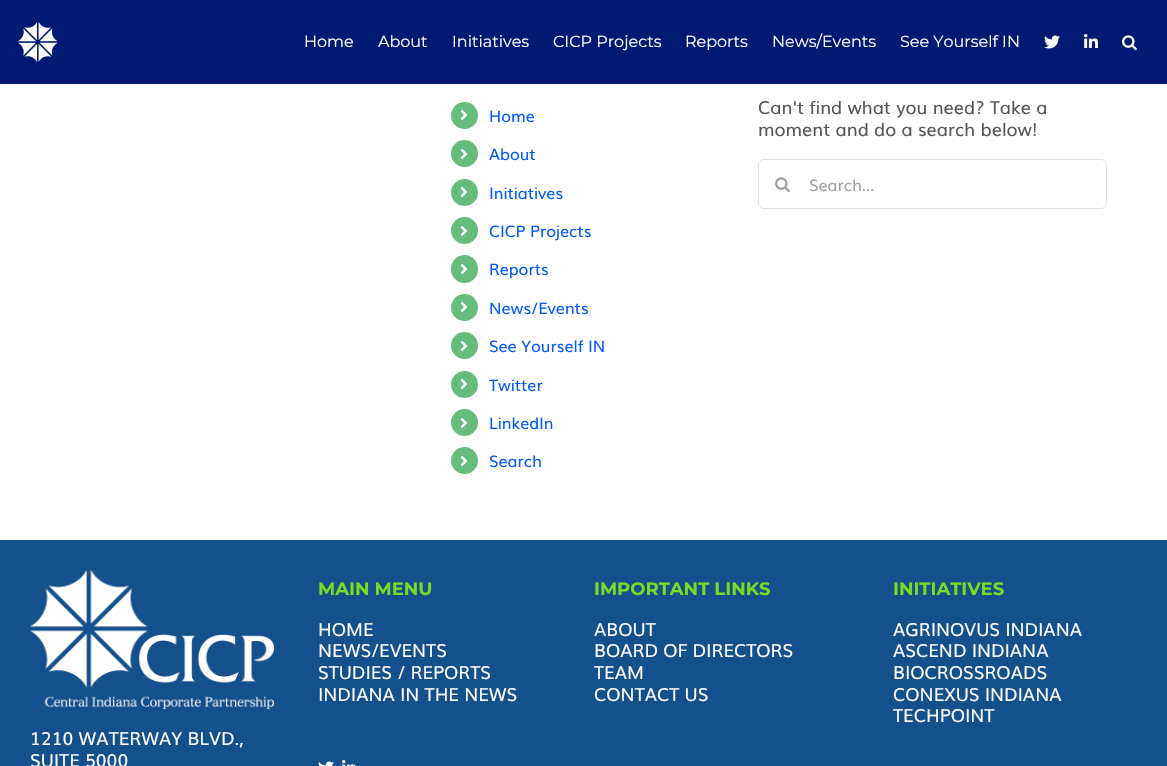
#include "include/core/SkBlurTypes.h"
#include "include/core/SkCanvas.h"
#include "include/core/SkData.h"
#include "include/core/SkFont.h"
#include "include/core/SkFontMgr.h"
#include "include/core/SkImage.h"
#include "include/core/SkMaskFilter.h"
#include "include/core/SkPaint.h"
#include "include/core/SkPathBuilder.h"
#include "include/core/SkTextBlob.h"
#include "include/effects/SkDashPathEffect.h"
#include "include/effects/SkGradientShader.h"
#include "include/utils/SkParsePath.h"

extern sk_sp<SkFontMgr> fontMgr;

void draw(SkCanvas* canvas) {
    SkPaint p;
    p.setAntiAlias(true);
    auto font = [&](const char* family, int weight, float size, bool italic = false) {
        SkFontStyle style(weight, SkFontStyle::kNormal_Width,
            italic ? SkFontStyle::kItalic_Slant : SkFontStyle::kUpright_Slant);
        SkFont result(fontMgr->matchFamilyStyle(family, style), size);
        result.setSubpixel(true);
        return result;
    };
    auto drawPhoto = [&](const char* path, float l, float t, float r, float b) {
        auto image = SkImages::DeferredFromEncodedData(SkData::MakeFromFileName(path));
        canvas->drawImageRect(image, SkRect::MakeLTRB(l, t, r, b), SkSamplingOptions());
    };
    canvas->clear(0xFFFFFFFF);
    p.setColor(0xFF001A74);
    canvas->drawRect(SkRect::MakeLTRB(0, 0, 1167, 84), p);
    drawPhoto("media/1.png", 18, 22, 58, 62);
    auto font1 = font("Montserrat", 400, 16);
    p.setColor(0xFFFFFFFF);
    {
        const struct { const char* s; float x, y; } items[] = {
            {"Home", 304, 47},
            {"About", 378, 47},
            {"Initiatives", 452, 47},
            {"CICP Projects", 553, 47},
            {"Reports", 685, 47},
            {"News/Events", 772, 47},
            {"See Yourself IN", 900, 47},
        };
        for (auto [s, x, y] : items) {
            canvas->drawString(s, x, y, font1, p);
        }
    }
    drawPhoto("media/2.png", 1044, 35, 1060, 49);
    drawPhoto("media/3.png", 1084, 34, 1098, 48);
    drawPhoto("media/4.png", 1122, 35, 1137, 51);
    p.setColor(0xFF65BC7B);
    canvas->drawCircle(464.5f, 115.5f, 13.5f, p);
    drawPhoto("media/5.png", 460, 110, 468, 120);
    auto font2 = font("Muli", 400, 16);
    p.setColor(0xFF0058FF);
    canvas->drawString("Home", 489, 122, font2, p);
    p.setColor(0xFF65BC7B);
    canvas->drawCircle(464.5f, 153.5f, 13.5f, p);
    drawPhoto("media/5.png", 460, 149, 468, 159);
    p.setColor(0xFF0058FF);
    canvas->drawString("About", 489, 160, font2, p);
    p.setColor(0xFF65BC7B);
    canvas->drawCircle(464.5f, 192.5f, 13.5f, p);
    drawPhoto("media/5.png", 460, 187, 468, 197);
    p.setColor(0xFF0058FF);
    canvas->drawString("Initiatives", 489, 199, font2, p);
    p.setColor(0xFF65BC7B);
    canvas->drawCircle(464.5f, 230.5f, 13.5f, p);
    drawPhoto("media/5.png", 460, 226, 468, 236);
    p.setColor(0xFF0058FF);
    canvas->drawString("CICP Projects", 489, 237, font2, p);
    p.setColor(0xFF65BC7B);
    canvas->drawRoundRect(SkRect::MakeLTRB(451, 255, 478, 283), 13.5f, 13.5f, p);
    drawPhoto("media/5.png", 460, 264, 468, 274);
    p.setColor(0xFF0058FF);
    canvas->drawString("Reports", 489, 275, font2, p);
    p.setColor(0xFF65BC7B);
    canvas->drawCircle(464.5f, 307.5f, 13.5f, p);
    drawPhoto("media/5.png", 460, 302, 468, 312);
    p.setColor(0xFF0058FF);
    canvas->drawString("News/Events", 489, 314, font2, p);
    p.setColor(0xFF65BC7B);
    canvas->drawCircle(464.5f, 345.5f, 13.5f, p);
    drawPhoto("media/5.png", 460, 341, 468, 351);
    p.setColor(0xFF0058FF);
    canvas->drawString("See Yourself IN", 489, 352, font2, p);
    p.setColor(0xFF65BC7B);
    canvas->drawCircle(464.5f, 384.5f, 13.5f, p);
    drawPhoto("media/5.png", 460, 379, 468, 389);
    p.setColor(0xFF0058FF);
    canvas->drawString("Twitter", 489, 391, font2, p);
    p.setColor(0xFF65BC7B);
    canvas->drawCircle(464.5f, 422.5f, 13.5f, p);
    drawPhoto("media/5.png", 460, 418, 468, 428);
    p.setColor(0xFF0058FF);
    canvas->drawString("LinkedIn", 489, 429, font2, p);
    p.setColor(0xFF65BC7B);
    canvas->drawCircle(464.5f, 460.5f, 13.5f, p);
    drawPhoto("media/5.png", 460, 456, 468, 466);
    p.setColor(0xFF0058FF);
    canvas->drawString("Search", 489, 467, font2, p);
    auto font3 = font("Muli", 400, 18);
    p.setColor(0xFF555555);
    canvas->drawString("Can't find what you need? Take a", 758, 114, font3, p);
    canvas->drawString("moment and do a search below!", 758, 136, font3, p);
    p.setStyle(SkPaint::kStroke_Style);
    p.setStrokeWidth(1);
    p.setColor(0xFFE2E2E2);
    canvas->drawRoundRect(SkRect::MakeLTRB(758.5f, 159.5f, 1106.5f, 208.5f), 5.5f, 5.5f, p);
    drawPhoto("media/6.png", 775, 177, 790, 193);
    p.setStyle(SkPaint::kFill_Style);
    p.setColor(0xFF9EA0A4);
    canvas->drawString("Search...", 809, 191, font2, p);
    p.setColor(0xFF14508C);
    canvas->drawRect(SkRect::MakeLTRB(0, 540, 1167, 766), p);
    auto font4 = font("Montserrat", 700, 18);
    p.setColor(0xFF7CDA24);
    canvas->drawString("MAIN MENU", 318, 595, font4, p);
    p.setColor(0xFFFFFFFF);
    {
        const struct { const char* s; float x, y; } items[] = {
            {"HOME", 318, 636},
            {"NEWS/EVENTS", 318, 657},
            {"STUDIES / REPORTS", 318, 679},
            {"INDIANA IN THE NEWS", 318, 701},
        };
        for (auto [s, x, y] : items) {
            canvas->drawString(s, x, y, font3, p);
        }
    }
    p.setColor(0xFF7CDA24);
    canvas->drawString("IMPORTANT LINKS", 594, 595, font4, p);
    p.setColor(0xFFFFFFFF);
    {
        const struct { const char* s; float x, y; } items[] = {
            {"ABOUT", 594, 636},
            {"BOARD OF DIRECTORS", 594, 657},
            {"TEAM", 594, 679},
            {"CONTACT US", 594, 701},
        };
        for (auto [s, x, y] : items) {
            canvas->drawString(s, x, y, font3, p);
        }
    }
    drawPhoto("media/7.png", 318, 761, 334, 766);
    drawPhoto("media/8.png", 342, 760, 356, 766);
    p.setColor(0xFF7CDA24);
    canvas->drawString("INITIATIVES", 893, 595, font4, p);
    p.setColor(0xFFFFFFFF);
    {
        const struct { const char* s; float x, y; } items[] = {
            {"AGRINOVUS INDIANA", 893, 636},
            {"ASCEND INDIANA", 893, 657},
            {"BIOCROSSROADS", 893, 679},
            {"CONEXUS INDIANA", 893, 701},
            {"TECHPOINT", 893, 722},
        };
        for (auto [s, x, y] : items) {
            canvas->drawString(s, x, y, font3, p);
        }
    }
    drawPhoto("media/9.png", 30, 570, 274, 709);
    canvas->drawString("1210 WATERWAY BLVD.,", 30, 745, font3, p);
    canvas->drawString("SUITE 5000", 30, 767, font3, p);
}
